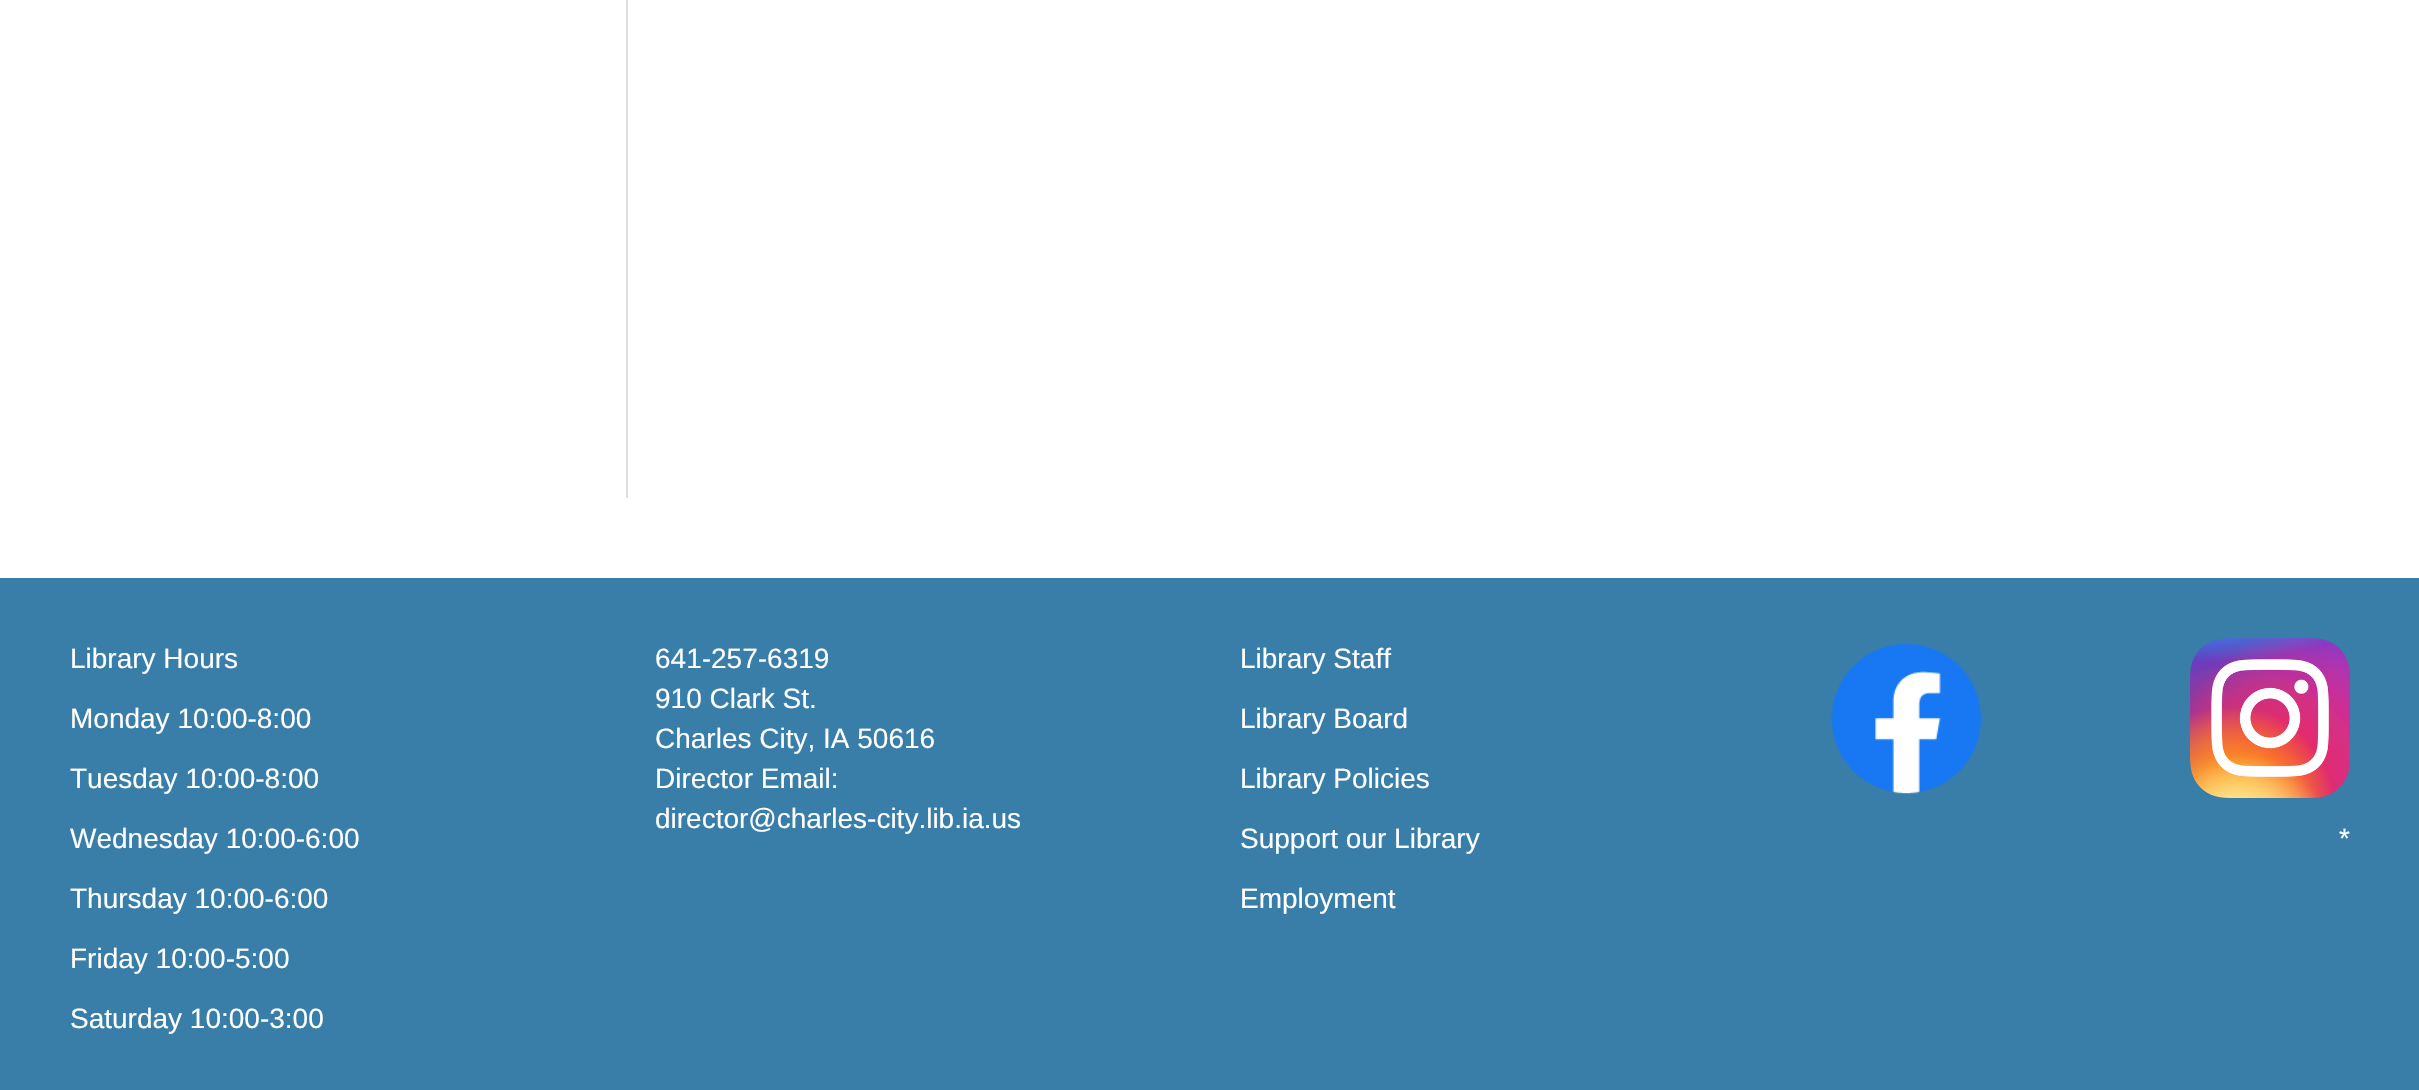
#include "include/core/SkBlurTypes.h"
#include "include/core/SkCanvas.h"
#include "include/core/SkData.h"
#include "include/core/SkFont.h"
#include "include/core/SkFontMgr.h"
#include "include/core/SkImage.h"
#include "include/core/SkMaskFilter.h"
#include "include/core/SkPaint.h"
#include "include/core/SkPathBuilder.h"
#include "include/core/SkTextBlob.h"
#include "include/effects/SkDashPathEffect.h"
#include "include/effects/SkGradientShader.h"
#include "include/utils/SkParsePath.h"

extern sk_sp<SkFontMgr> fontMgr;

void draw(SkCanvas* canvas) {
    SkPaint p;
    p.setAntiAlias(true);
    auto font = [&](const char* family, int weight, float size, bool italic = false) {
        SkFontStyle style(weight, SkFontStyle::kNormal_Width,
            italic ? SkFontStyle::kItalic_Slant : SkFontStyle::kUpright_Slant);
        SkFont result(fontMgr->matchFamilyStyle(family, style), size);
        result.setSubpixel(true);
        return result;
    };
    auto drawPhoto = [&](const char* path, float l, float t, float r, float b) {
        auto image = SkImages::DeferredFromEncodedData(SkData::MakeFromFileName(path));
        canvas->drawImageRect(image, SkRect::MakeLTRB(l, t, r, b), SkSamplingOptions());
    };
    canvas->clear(0xFFFFFFFF);
    p.setColor(0xFFDEDEDE);
    canvas->drawRect(SkRect::MakeLTRB(626, 0, 628, 498), p);
    p.setColor(0xFF387EA8);
    canvas->drawRect(SkRect::MakeLTRB(0, 578, 2419, 1090), p);
    auto font1 = font("Liberation Sans", 400, 28);
    p.setColor(0xFFFFFFFF);
    {
        const struct { const char* s; float x, y; } items[] = {
            {"Library Hours", 70, 668},
            {"Monday 10:00-8:00", 70, 728},
            {"Tuesday 10:00-8:00", 70, 788},
            {"Wednesday 10:00-6:00", 70, 848},
            {"Thursday 10:00-6:00", 70, 908},
            {"Friday 10:00-5:00", 70, 968},
            {"Saturday 10:00-3:00", 70, 1028},
            {"641-257-6319", 655, 668},
            {"910 Clark St.", 655, 708},
            {"Charles City, IA 50616", 655, 748},
            {"Director Email:", 655, 788},
            {"director@charles-city.lib.ia.us", 655, 828},
            {"Library Staff", 1240, 668},
            {"Library Board", 1240, 728},
            {"Library Policies", 1240, 788},
            {"Support our Library", 1240, 848},
            {"Employment", 1240, 908},
        };
        for (auto [s, x, y] : items) {
            canvas->drawString(s, x, y, font1, p);
        }
    }
    drawPhoto("media/1.png", 1831, 644, 1982, 794);
    drawPhoto("media/2.png", 2190, 638, 2350, 798);
    canvas->drawString("*", 2339, 848, font1, p);
}
